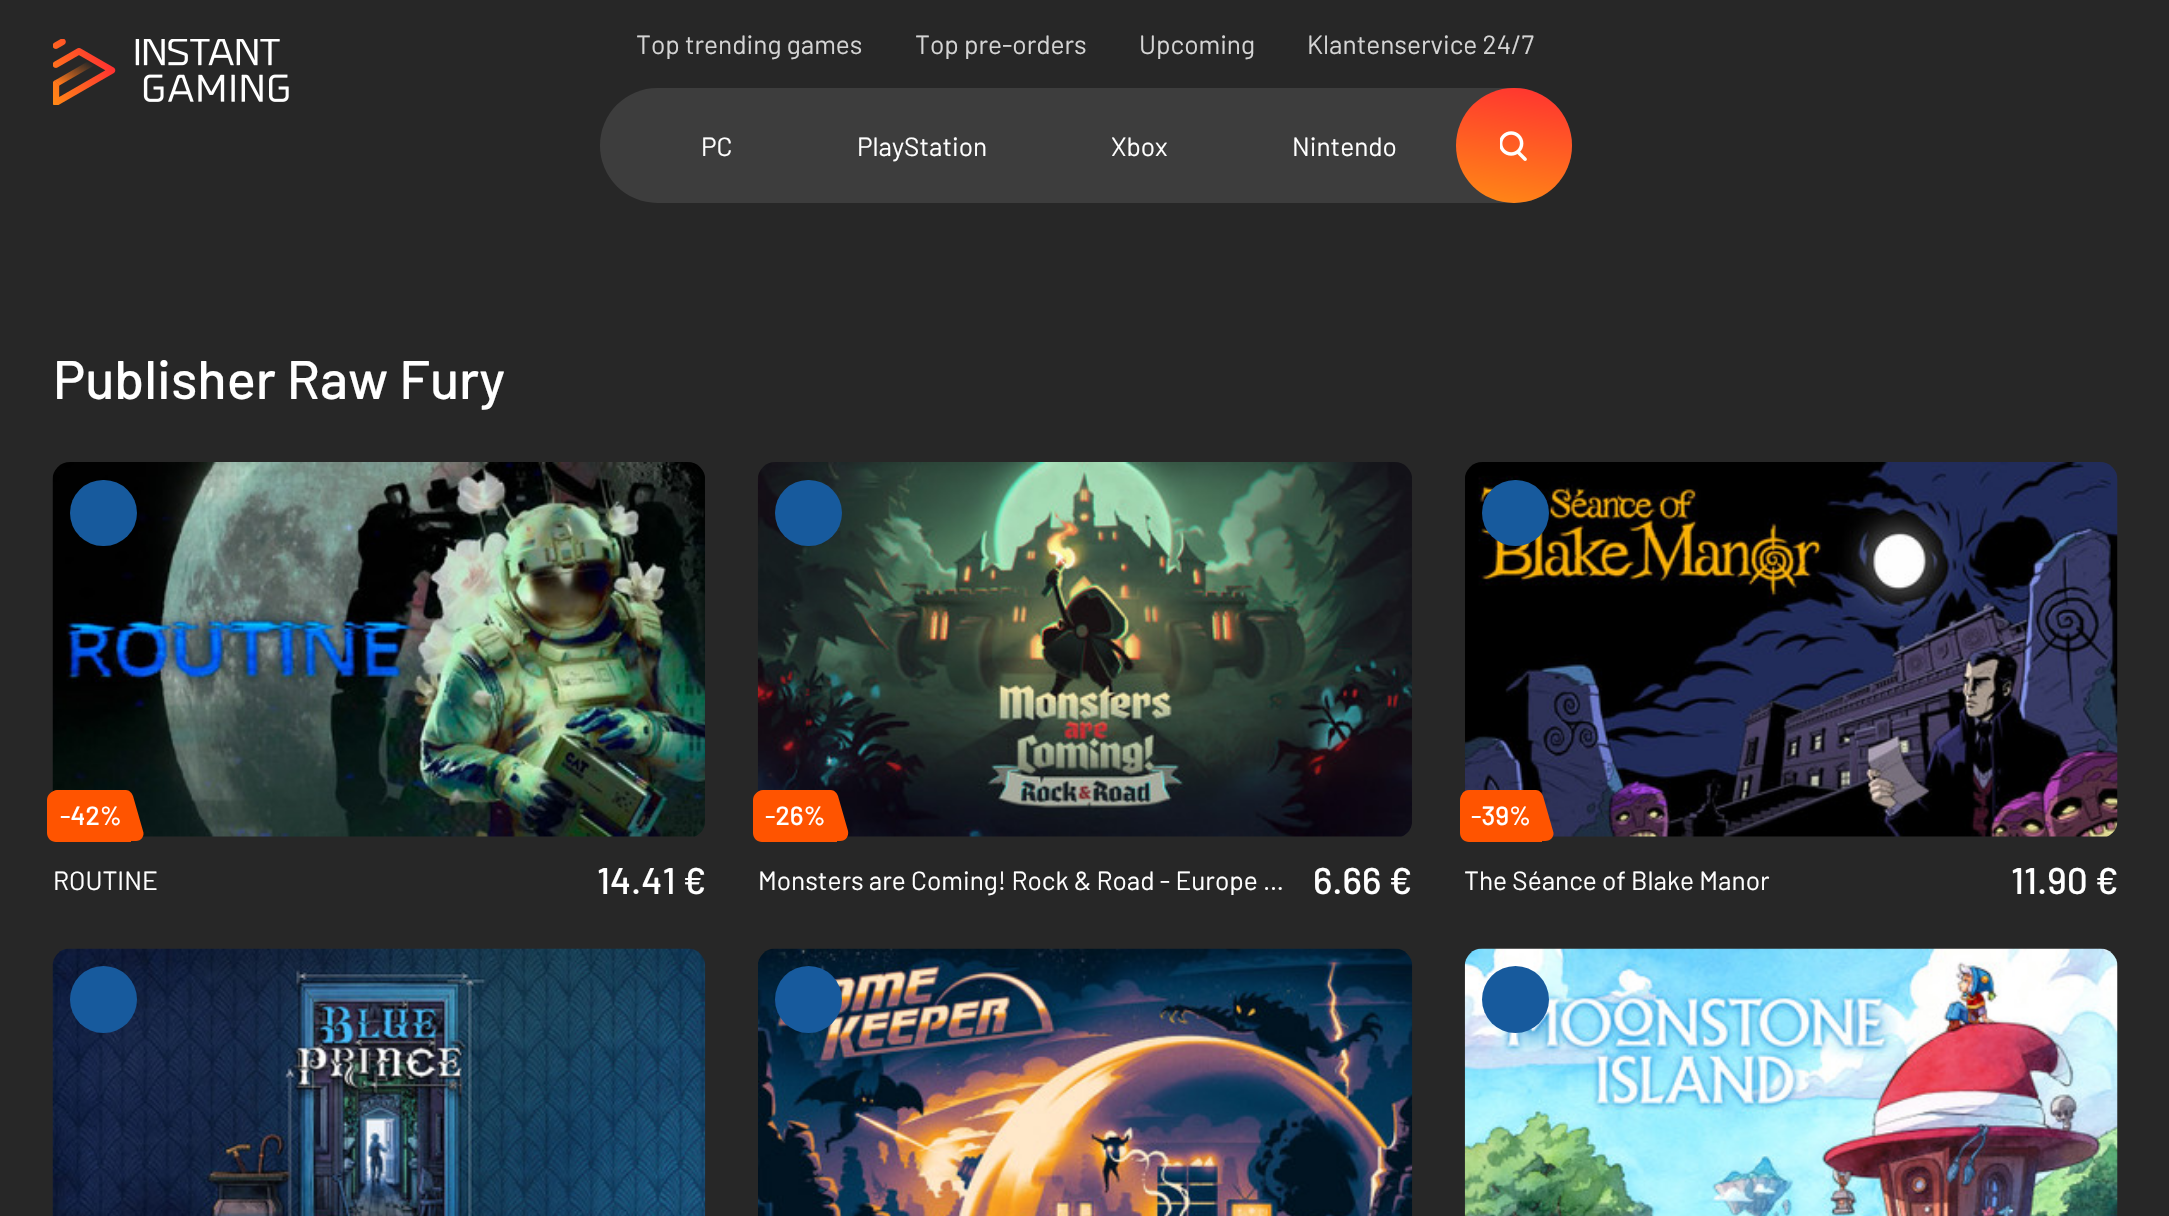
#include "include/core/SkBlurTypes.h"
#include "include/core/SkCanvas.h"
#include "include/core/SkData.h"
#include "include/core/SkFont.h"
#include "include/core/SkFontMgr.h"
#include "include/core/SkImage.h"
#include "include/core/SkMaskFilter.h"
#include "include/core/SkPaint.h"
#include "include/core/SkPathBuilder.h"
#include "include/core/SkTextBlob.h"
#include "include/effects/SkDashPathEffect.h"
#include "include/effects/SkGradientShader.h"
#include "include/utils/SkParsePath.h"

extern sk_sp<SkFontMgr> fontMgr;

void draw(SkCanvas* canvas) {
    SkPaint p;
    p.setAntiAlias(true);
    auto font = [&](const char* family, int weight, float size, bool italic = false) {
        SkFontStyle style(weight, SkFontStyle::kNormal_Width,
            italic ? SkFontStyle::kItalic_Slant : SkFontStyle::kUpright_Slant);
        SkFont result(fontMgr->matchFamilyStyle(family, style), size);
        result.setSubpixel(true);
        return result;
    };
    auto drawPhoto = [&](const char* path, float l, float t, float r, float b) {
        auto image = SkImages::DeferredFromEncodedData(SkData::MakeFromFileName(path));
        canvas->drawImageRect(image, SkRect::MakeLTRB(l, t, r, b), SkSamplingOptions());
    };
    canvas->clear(0xFF272727);
    drawPhoto("media/1.png", 53, 39, 289, 105);
    auto font1 = font("Barlow", 400, 26.25f);
    p.setColor(0xFFD4D4D4);
    {
        const struct { const char* s; float x, y; } items[] = {
            {"Top trending games", 636, 54},
            {"Top pre-orders", 915, 54},
            {"Upcoming", 1139, 54},
            {"Klantenservice 24/7", 1307, 54},
        };
        for (auto [s, x, y] : items) {
            canvas->drawString(s, x, y, font1, p);
        }
    }
    p.setColor(0xFF3D3D3D);
    canvas->drawRoundRect(SkRect::MakeLTRB(600, 88, 1572, 203), 57.5f, 57.5f, p);
    p.setColor(0xFFFFFFFF);
    {
        const struct { const char* s; float x, y; } items[] = {
            {"PC", 701, 156},
            {"PlayStation", 857, 156},
            {"Xbox", 1111, 156},
            {"Nintendo", 1292, 156},
        };
        for (auto [s, x, y] : items) {
            canvas->drawString(s, x, y, font1, p);
        }
    }
    {
        const SkColor colors[] = {0xFFFF8A15, 0xFFFF3131};
        const float stops[] = {0, 1};
        const SkPoint ends[] = {{1501, 211}, {1524, 79}};
        p.setShader(SkGradientShader::MakeLinear(ends, colors, stops, 2, SkTileMode::kClamp));
        p.setAlpha(255);
    }
    canvas->drawRoundRect(SkRect::MakeLTRB(1456, 88, 1572, 203), 57.5f, 57.5f, p);
    drawPhoto("media/2.png", 1500, 131, 1527, 161);
    auto font2 = font("Barlow", 500, 54.25f);
    p.setShader(nullptr);
    p.setColor(0xFFFFFFFF);
    canvas->drawString("Publisher Raw Fury", 53, 399, font2, p);
    drawPhoto("media/3.png", 52, 462, 705, 837);
    p.setColor(0xFF175A9D);
    canvas->drawRoundRect(SkRect::MakeLTRB(70, 480, 137, 546), 33, 33, p);
    p.setColor(0xFFFF5400);
    canvas->drawPath(SkPathBuilder().moveTo(56, 791).lineTo(122, 791).cubicTo(127, 791, 131, 795, 131, 800).lineTo(131, 842).lineTo(56, 842).cubicTo(51, 842, 47, 838, 47, 833).lineTo(47, 800).cubicTo(47, 795, 51, 791, 56, 791).close().detach(), p);
    canvas->drawPath(SkPathBuilder().moveTo(57, 790).lineTo(126, 790).cubicTo(129, 790, 132, 793, 133, 796).lineTo(143, 831).cubicTo(145, 836, 141, 841, 136, 841).lineTo(67, 841).cubicTo(64, 841, 61, 839, 60, 836).lineTo(50, 801).cubicTo(48, 795, 52, 790, 57, 790).close().detach(), p);
    auto font3 = font("Barlow", 500, 26.25f);
    p.setColor(0xFFFFFFFF);
    canvas->drawString("-42%", 60, 825, font3, p);
    canvas->drawString("ROUTINE", 53, 890, font1, p);
    auto font4 = font("Barlow", 500, 37);
    canvas->drawString("14.41 €", 597, 894, font4, p);
    drawPhoto("media/4.png", 757, 462, 1412, 837);
    p.setColor(0xFF175A9D);
    canvas->drawRoundRect(SkRect::MakeLTRB(775, 480, 842, 546), 33, 33, p);
    p.setColor(0xFFFF5400);
    canvas->drawPath(SkPathBuilder().moveTo(762, 791).lineTo(828, 791).cubicTo(833, 791, 837, 795, 837, 800).lineTo(837, 842).lineTo(762, 842).cubicTo(757, 842, 753, 838, 753, 833).lineTo(753, 800).cubicTo(753, 795, 757, 791, 762, 791).close().detach(), p);
    canvas->drawPath(SkPathBuilder().moveTo(763, 790).lineTo(831, 790).cubicTo(834, 790, 837, 793, 838, 796).lineTo(848, 831).cubicTo(849, 836, 846, 841, 840, 841).lineTo(773, 841).cubicTo(770, 841, 767, 839, 766, 836).lineTo(756, 801).cubicTo(754, 795, 757, 790, 763, 790).close().detach(), p);
    p.setColor(0xFFFFFFFF);
    canvas->drawString("-26%", 765, 825, font3, p);
    canvas->drawString("Monsters are Coming! Rock & Road - Europe …", 758, 890, font1, p);
    canvas->drawString("6.66 €", 1313, 894, font4, p);
    drawPhoto("media/5.png", 1465, 462, 2118, 837);
    p.setColor(0xFF175A9D);
    canvas->drawRoundRect(SkRect::MakeLTRB(1482, 480, 1549, 546), 33, 33, p);
    p.setColor(0xFFFF5400);
    canvas->drawPath(SkPathBuilder().moveTo(1469, 791).lineTo(1533, 791).cubicTo(1538, 791, 1542, 795, 1542, 800).lineTo(1542, 842).lineTo(1469, 842).cubicTo(1464, 842, 1460, 838, 1460, 833).lineTo(1460, 800).cubicTo(1460, 795, 1464, 791, 1469, 791).close().detach(), p);
    canvas->drawPath(SkPathBuilder().moveTo(1469, 790).lineTo(1536, 790).cubicTo(1539, 790, 1542, 793, 1543, 796).lineTo(1553, 831).cubicTo(1555, 836, 1551, 841, 1545, 841).lineTo(1478, 841).cubicTo(1476, 841, 1473, 839, 1472, 836).lineTo(1462, 801).cubicTo(1460, 795, 1463, 790, 1469, 790).close().detach(), p);
    p.setColor(0xFFFFFFFF);
    canvas->drawString("-39%", 1471, 825, font3, p);
    canvas->drawString("The Séance of Blake Manor", 1464, 890, font1, p);
    canvas->drawString("11.90 €", 2011, 894, font4, p);
    drawPhoto("media/6.png", 52, 948, 706, 1216);
    p.setColor(0xFF175A9D);
    canvas->drawCircle(103.5f, 999.5f, 33.5f, p);
    drawPhoto("media/7.png", 758, 948, 1413, 1216);
    canvas->drawCircle(808.5f, 999.5f, 33.5f, p);
    drawPhoto("media/8.png", 1464, 948, 2118, 1216);
    canvas->drawCircle(1515.5f, 999.5f, 33.5f, p);
}
